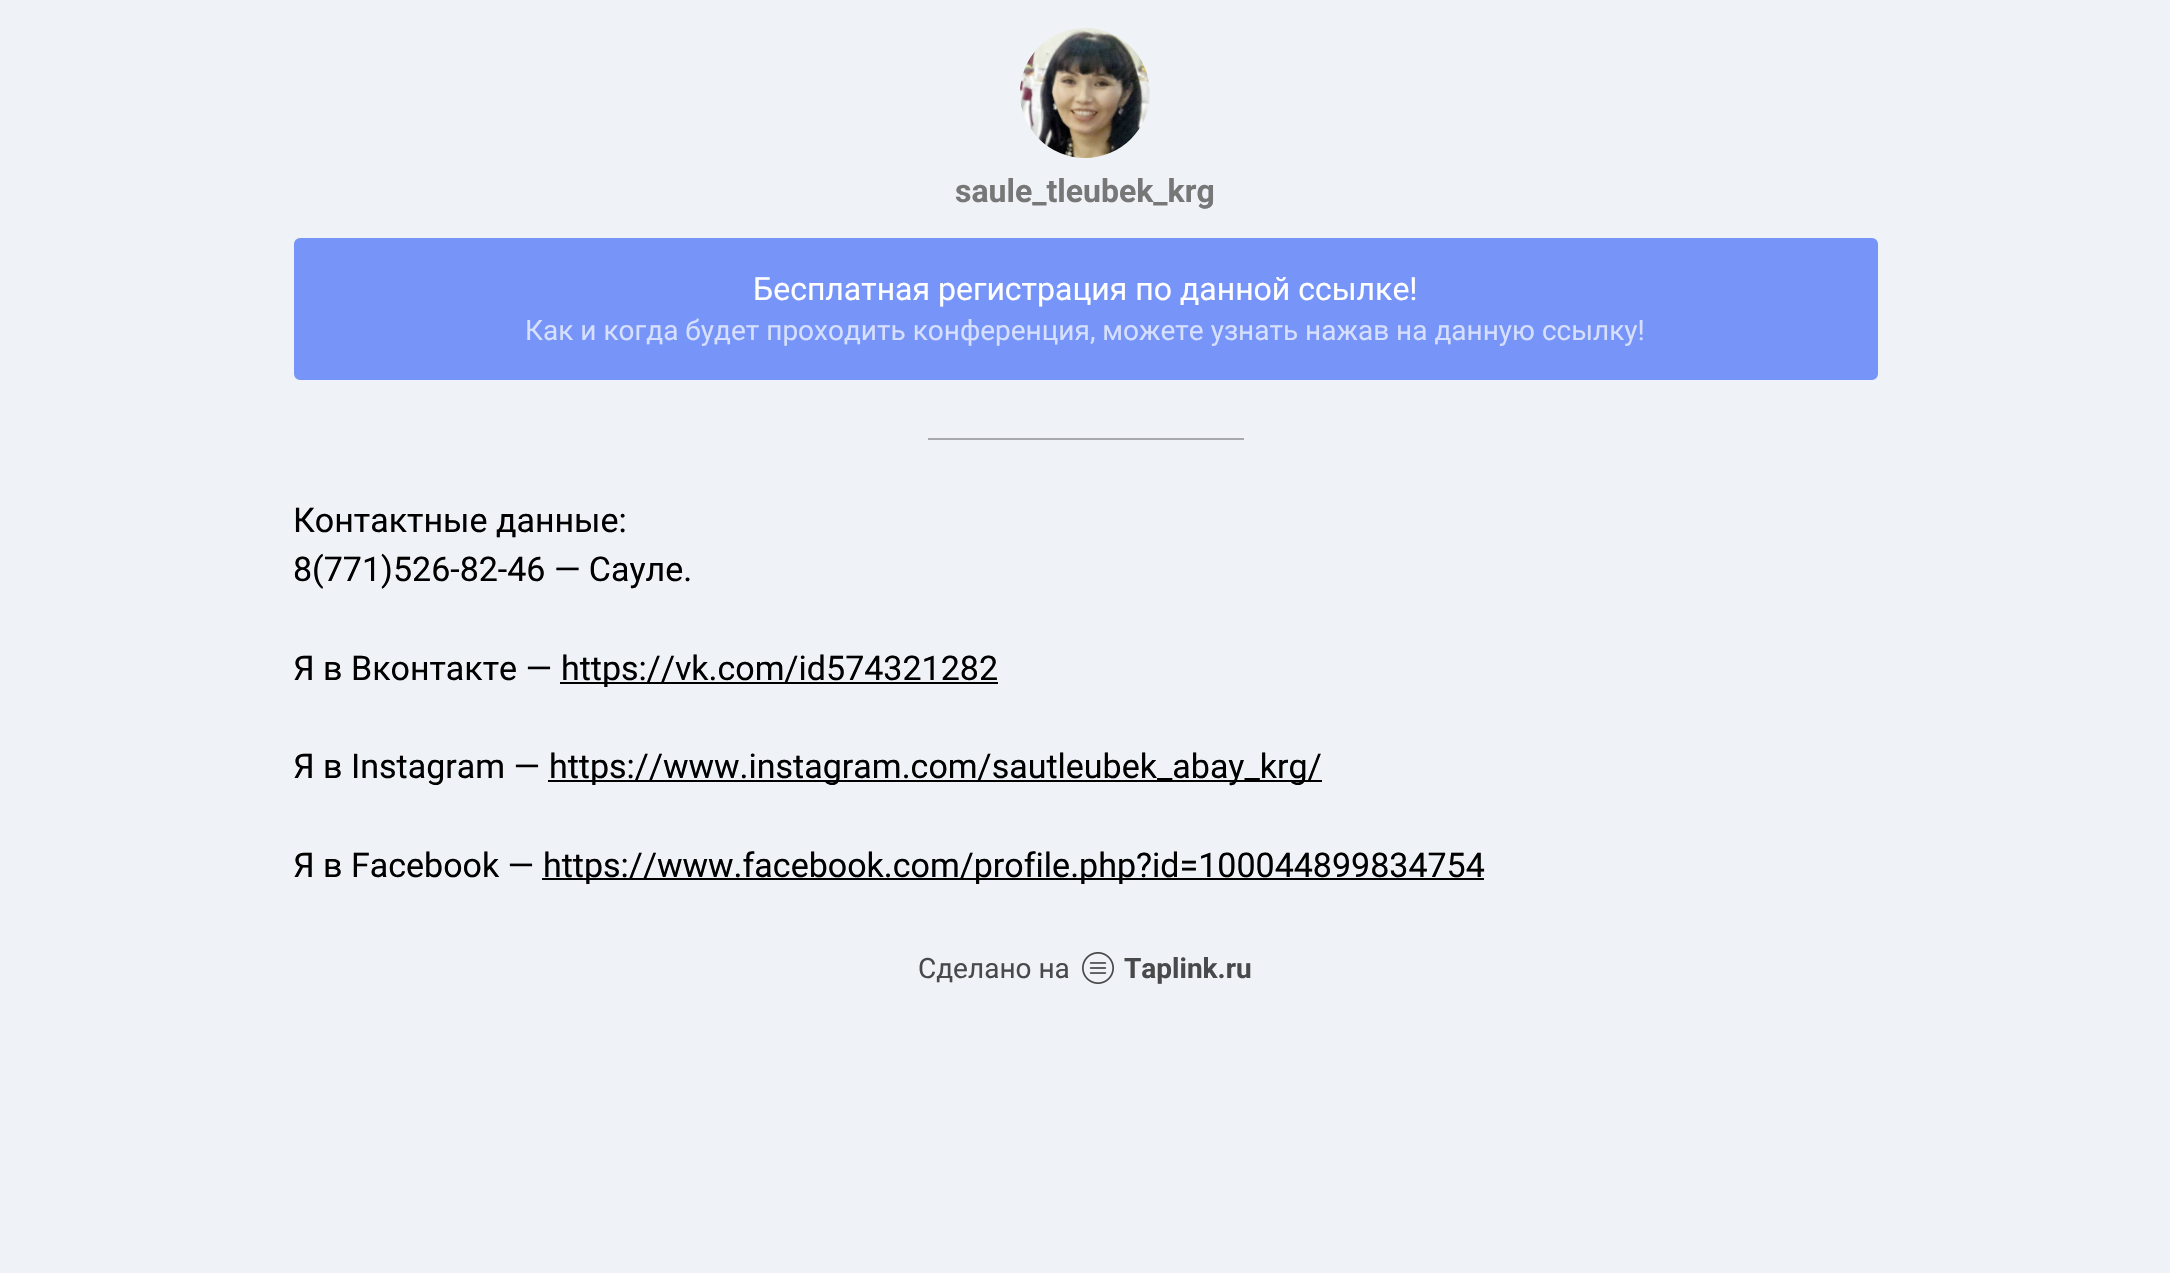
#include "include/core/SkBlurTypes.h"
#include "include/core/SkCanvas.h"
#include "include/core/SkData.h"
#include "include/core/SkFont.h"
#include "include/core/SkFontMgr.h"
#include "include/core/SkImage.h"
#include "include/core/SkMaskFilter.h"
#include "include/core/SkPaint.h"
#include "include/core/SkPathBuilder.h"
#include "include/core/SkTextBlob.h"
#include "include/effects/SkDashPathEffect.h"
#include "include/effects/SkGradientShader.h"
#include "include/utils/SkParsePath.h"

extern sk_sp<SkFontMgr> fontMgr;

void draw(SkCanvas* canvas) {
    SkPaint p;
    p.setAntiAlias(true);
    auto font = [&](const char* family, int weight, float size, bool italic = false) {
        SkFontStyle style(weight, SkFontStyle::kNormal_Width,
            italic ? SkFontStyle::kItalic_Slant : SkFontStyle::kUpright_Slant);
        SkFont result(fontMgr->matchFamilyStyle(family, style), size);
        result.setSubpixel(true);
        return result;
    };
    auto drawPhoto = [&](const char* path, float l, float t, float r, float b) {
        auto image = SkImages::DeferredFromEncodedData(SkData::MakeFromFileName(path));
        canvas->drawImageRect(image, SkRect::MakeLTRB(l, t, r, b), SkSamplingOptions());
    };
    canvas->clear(0xFFEFF2F7);
    drawPhoto("media/1.png", 1020, 28, 1150, 158);
    auto font1 = font("Roboto", 700, 32);
    p.setColor(0xFF777777);
    canvas->drawString("saule_tleubek_krg", 955, 202, font1, p);
    p.setColor(0xFF7795F8);
    canvas->drawRoundRect(SkRect::MakeLTRB(296, 240, 1876, 378), 4, 4, p);
    p.setStyle(SkPaint::kStroke_Style);
    p.setStrokeWidth(4);
    canvas->drawRoundRect(SkRect::MakeLTRB(296, 240, 1876, 378), 4, 4, p);
    auto font2 = font("Roboto", 400, 32);
    p.setStyle(SkPaint::kFill_Style);
    p.setColor(0xFFFFFFFF);
    canvas->drawString("Бесплатная регистрация по данной ссылке!", 753, 300, font2, p);
    auto font3 = font("Roboto", 400, 28);
    p.setColor(0xFFD6DFFD);
    canvas->drawString("Как и когда будет проходить конференция, можете узнать нажав на данную ссылку!", 525, 340, font3, p);
    p.setColor(0xFFA7A9AD);
    canvas->drawRect(SkRect::MakeLTRB(928, 438, 1244, 440), p);
    auto font4 = font("Roboto", 400, 34);
    p.setColor(0xFF000000);
    {
        const struct { const char* s; float x, y; } items[] = {
            {"Контактные данные:", 293, 532},
            {"8(771)526-82-46 — Сауле.", 293, 581},
            {"Я в Вконтакте —", 293, 680},
        };
        for (auto [s, x, y] : items) {
            canvas->drawString(s, x, y, font4, p);
        }
    }
    canvas->drawRect(SkRect::MakeLTRB(560, 682, 998, 684), p);
    canvas->drawString("https://vk.com/id574321282", 561, 680, font4, p);
    canvas->drawString("Я в Instagram —", 293, 778, font4, p);
    canvas->drawRect(SkRect::MakeLTRB(548, 780, 1322, 782), p);
    canvas->drawString("https://www.instagram.com/sautleubek_abay_krg/", 549, 778, font4, p);
    canvas->drawString("Я в Facebook —", 293, 877, font4, p);
    canvas->drawRect(SkRect::MakeLTRB(542, 878, 1484, 880), p);
    canvas->drawString("https://www.facebook.com/profile.php?id=100044899834754", 543, 877, font4, p);
    p.setColor(0xFF48494A);
    canvas->drawString("Сделано на", 918, 978, font3, p);
    drawPhoto("media/2.png", 1082, 952, 1114, 984);
    auto font5 = font("Roboto", 700, 28);
    canvas->drawString("Taplink.ru", 1124, 978, font5, p);
}
